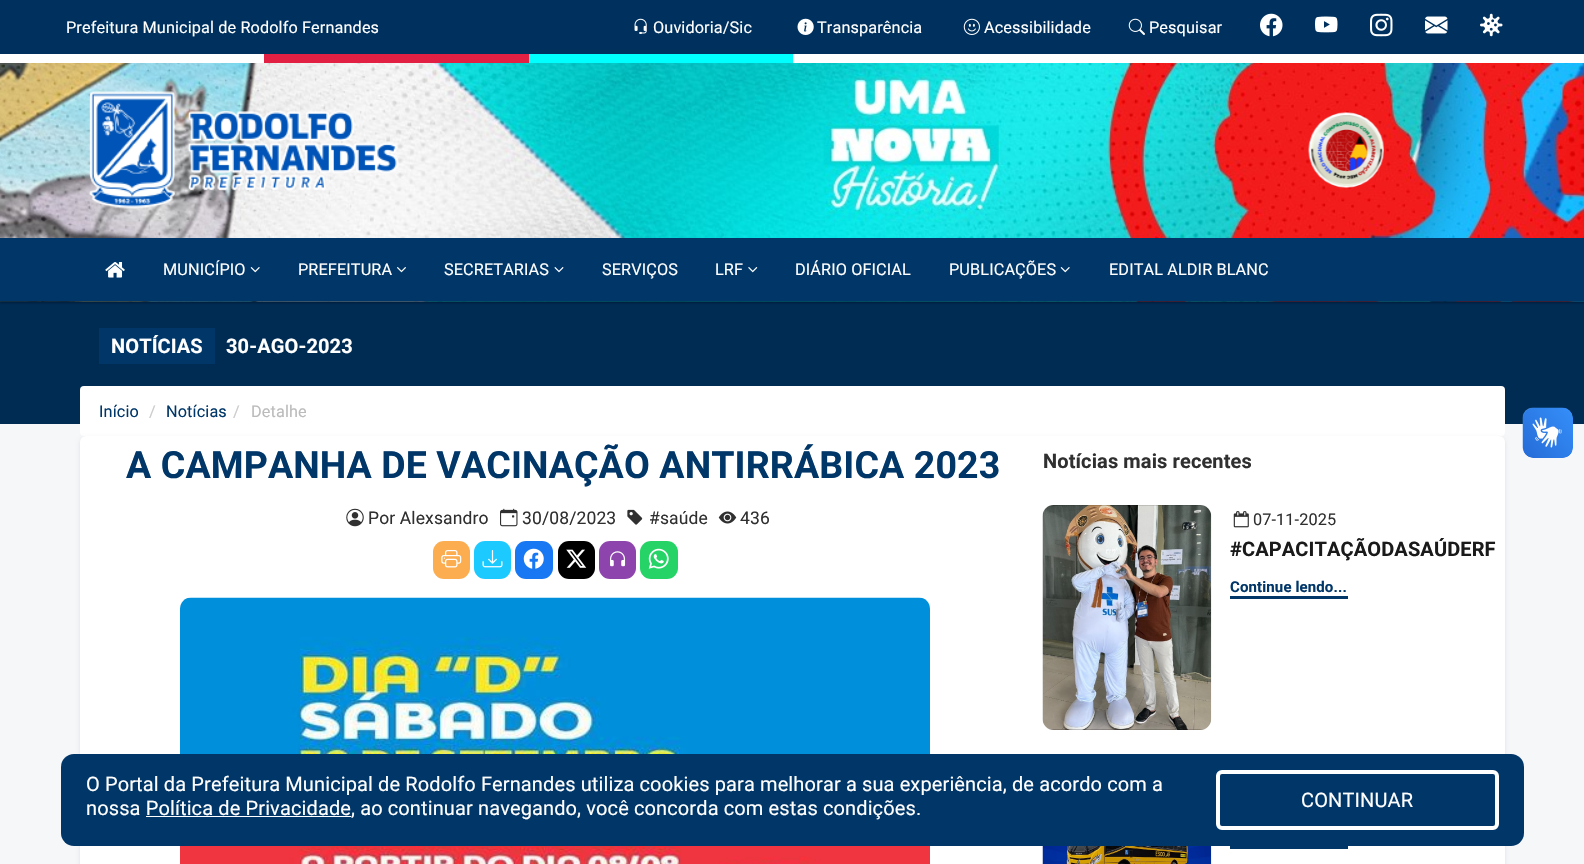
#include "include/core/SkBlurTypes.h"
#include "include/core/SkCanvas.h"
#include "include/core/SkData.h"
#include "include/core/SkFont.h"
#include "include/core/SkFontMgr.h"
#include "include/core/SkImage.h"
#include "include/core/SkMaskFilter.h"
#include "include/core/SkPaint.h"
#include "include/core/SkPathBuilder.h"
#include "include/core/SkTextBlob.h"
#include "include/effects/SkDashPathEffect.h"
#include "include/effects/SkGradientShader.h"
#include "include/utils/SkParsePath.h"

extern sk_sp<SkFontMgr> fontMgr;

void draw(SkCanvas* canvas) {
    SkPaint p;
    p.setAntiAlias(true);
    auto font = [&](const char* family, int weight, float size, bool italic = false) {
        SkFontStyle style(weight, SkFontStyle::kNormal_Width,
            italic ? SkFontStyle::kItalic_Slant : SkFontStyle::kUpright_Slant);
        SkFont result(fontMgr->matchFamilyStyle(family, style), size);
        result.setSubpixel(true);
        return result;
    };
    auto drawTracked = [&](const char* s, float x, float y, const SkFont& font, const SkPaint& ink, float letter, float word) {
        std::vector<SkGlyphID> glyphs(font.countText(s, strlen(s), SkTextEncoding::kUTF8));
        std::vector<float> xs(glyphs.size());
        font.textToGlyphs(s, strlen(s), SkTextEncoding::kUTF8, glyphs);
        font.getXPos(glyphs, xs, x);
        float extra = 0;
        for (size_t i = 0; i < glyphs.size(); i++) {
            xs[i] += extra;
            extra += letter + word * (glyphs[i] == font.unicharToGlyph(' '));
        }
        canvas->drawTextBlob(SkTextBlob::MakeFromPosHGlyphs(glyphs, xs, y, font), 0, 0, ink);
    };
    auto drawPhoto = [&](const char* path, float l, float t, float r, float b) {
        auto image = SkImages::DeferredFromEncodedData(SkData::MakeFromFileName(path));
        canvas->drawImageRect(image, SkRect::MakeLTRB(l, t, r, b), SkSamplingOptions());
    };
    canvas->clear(0xFFF6F7F8);
    p.setColor(0xFF002B53);
    canvas->drawRect(SkRect::MakeLTRB(0, 301, 1584, 424), p);
    p.setColor(0x4D000000);
    p.setMaskFilter(SkMaskFilter::MakeBlur(kNormal_SkBlurStyle, 1));
    canvas->drawRect(SkRect::MakeLTRB(0, 1, 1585, 303), p);
    p.setMaskFilter(nullptr);
    drawPhoto("media/1.png", 0, 63, 1584, 302);
    p.setColor(0xFF00315E);
    canvas->drawRect(SkRect::MakeLTRB(0, 0, 1584, 54), p);
    auto font1 = font("Roboto", 400, 16.25f);
    p.setColor(0xFFFFFFFF);
    drawTracked("Prefeitura Municipal de Rodolfo Fernandes", 66, 33, font1, p, 0.12f, 0);
    drawPhoto("media/2.png", 634, 18, 647, 34);
    drawTracked("Ouvidoria/Sic", 653, 33, font1, p, 0.12f, 0);
    drawPhoto("media/3.png", 797, 18, 814, 35);
    drawTracked("Transparência", 817, 33, font1, p, 0.12f, 0);
    drawPhoto("media/4.png", 963, 18, 980, 35);
    drawTracked("Acessibilidade", 984, 33, font1, p, 0.12f, 0);
    drawPhoto("media/5.png", 1128, 18, 1145, 35);
    drawTracked("Pesquisar", 1149, 33, font1, p, 0.12f, 0);
    drawPhoto("media/6.png", 1260, 13, 1283, 37);
    drawPhoto("media/7.png", 1315, 16, 1338, 33);
    drawPhoto("media/8.png", 1370, 13, 1393, 37);
    drawPhoto("media/9.png", 1425, 16, 1448, 34);
    drawPhoto("media/10.png", 1480, 13, 1503, 37);
    {
        const struct { float l, t, r, b; SkColor color; } items[] = {
            {0, 54, 264, 63, 0xFFFFFFFF},
            {264, 54, 529, 63, 0xFFE12044},
            {529, 54, 793, 63, 0xFF00FFFF},
            {793, 54, 1584, 63, 0xFFFFFFFF},
        };
        for (auto [l, t, r, b, color] : items) {
            p.setColor(color);
            canvas->drawRect(SkRect::MakeLTRB(l, t, r, b), p);
        }
    }
    drawPhoto("media/11.png", 89, 91, 399, 209);
    drawPhoto("media/12.png", 1308, 112, 1384, 188);
    p.setColor(0xFF003668);
    canvas->drawRect(SkRect::MakeLTRB(0, 238, 1584, 301), p);
    drawPhoto("media/13.png", 105, 262, 125, 278);
    p.setColor(0xFFFFFFFF);
    drawTracked("MUNICÍPIO", 163, 275, font1, p, 0.12f, 0);
    drawPhoto("media/14.png", 250, 267, 260, 273);
    drawTracked("PREFEITURA", 298, 275, font1, p, 0.12f, 0);
    drawPhoto("media/15.png", 397, 267, 406, 273);
    drawTracked("SECRETARIAS", 444, 275, font1, p, 0.12f, 0);
    drawPhoto("media/16.png", 554, 267, 564, 273);
    drawTracked("SERVIÇOS", 602, 275, font1, p, 0.12f, 0);
    drawTracked("LRF", 715, 275, font1, p, 0.12f, 0);
    drawPhoto("media/17.png", 748, 267, 758, 273);
    drawTracked("DIÁRIO OFICIAL", 795, 275, font1, p, 0.12f, 0);
    drawTracked("PUBLICAÇÕES", 949, 275, font1, p, 0.12f, 0);
    drawPhoto("media/14.png", 1060, 267, 1070, 273);
    drawTracked("EDITAL ALDIR BLANC", 1109, 275, font1, p, 0.12f, 0);
    p.setColor(0xFF003668);
    canvas->drawRect(SkRect::MakeLTRB(99, 328, 215, 364), p);
    auto font2 = font("Roboto", 700, 20);
    p.setColor(0xFFFFFFFF);
    drawTracked("NOTÍCIAS", 111, 353, font2, p, 0.12f, 0);
    drawTracked("30-AGO-2023", 226, 353, font2, p, 0.12f, 0);
    canvas->drawRoundRect(SkRect::MakeLTRB(80, 386, 1505, 436), 4, 4, p);
    p.setColor(0xFF003668);
    drawTracked("Início", 99, 417, font1, p, 0.12f, 0);
    p.setColor(0xFFCCCCCC);
    drawTracked("/", 149, 417, font1, p, 0.12f, 0);
    p.setColor(0xFF003668);
    drawTracked("Notícias", 166, 417, font1, p, 0.12f, 0);
    p.setColor(0xFFCCCCCC);
    drawTracked("/", 233, 417, font1, p, 0.12f, 0);
    p.setColor(0xFFBBBBBB);
    drawTracked("Detalhe", 251, 417, font1, p, 0.12f, 0);
    p.setColor(0x17030047);
    p.setMaskFilter(SkMaskFilter::MakeBlur(kNormal_SkBlurStyle, 2));
    canvas->drawRoundRect(SkRect::MakeLTRB(80, 438, 1505, 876), 6, 6, p);
    p.setMaskFilter(nullptr);
    p.setColor(0xFFFFFFFF);
    canvas->drawRoundRect(SkRect::MakeLTRB(80, 436, 1505, 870), 6, 6, p);
    auto font3 = font("Roboto", 700, 37.5f);
    p.setColor(0xFF003668);
    drawTracked("A CAMPANHA DE VACINAÇÃO ANTIRRÁBICA 2023", 126, 478, font3, p, 0.12f, 0);
    drawPhoto("media/18.png", 346, 508, 364, 527);
    auto font4 = font("Roboto", 400, 17.5f);
    p.setColor(0xFF303030);
    drawTracked("Por Alexsandro", 368, 524, font4, p, 0.12f, 0);
    drawPhoto("media/19.png", 500, 508, 518, 527);
    drawTracked("30/08/2023", 522, 524, font4, p, 0.12f, 0);
    drawPhoto("media/20.png", 627, 509, 643, 525);
    drawTracked("#saúde", 649, 524, font4, p, 0.12f, 0);
    drawPhoto("media/21.png", 718, 511, 737, 524);
    drawTracked("436", 740, 524, font4, p, 0.12f, 0);
    p.setColor(0xFFFBAD50);
    canvas->drawRoundRect(SkRect::MakeLTRB(433, 541, 470, 579), 11, 11, p);
    drawPhoto("media/22.png", 441, 550, 462, 568);
    p.setColor(0xFF1DCAFF);
    canvas->drawRoundRect(SkRect::MakeLTRB(474, 541, 511, 579), 11, 11, p);
    drawPhoto("media/23.png", 482, 550, 503, 568);
    p.setColor(0xFF1877F2);
    canvas->drawRoundRect(SkRect::MakeLTRB(515, 541, 553, 579), 11, 11, p);
    drawPhoto("media/24.png", 523, 548, 544, 569);
    p.setColor(0xFF000000);
    canvas->drawRoundRect(SkRect::MakeLTRB(558, 541, 595, 579), 11, 11, p);
    drawPhoto("media/25.png", 566, 549, 587, 568);
    p.setColor(0xFF8E44AD);
    canvas->drawRoundRect(SkRect::MakeLTRB(599, 541, 636, 579), 11, 11, p);
    drawPhoto("media/26.png", 610, 551, 626, 567);
    p.setColor(0xFF25D366);
    canvas->drawRoundRect(SkRect::MakeLTRB(640, 541, 678, 579), 11, 11, p);
    drawPhoto("media/27.png", 648, 548, 669, 569);
    drawPhoto("media/28.png", 180, 597, 930, 864);
    p.setColor(0xFF303030);
    drawTracked("Notícias mais recentes", 1043, 468, font2, p, 0.12f, 0);
    drawPhoto("media/29.png", 1042, 505, 1212, 730);
    drawPhoto("media/30.png", 1233, 511, 1249, 528);
    drawTracked("07-11-2025", 1253, 525, font1, p, 0.12f, 0);
    p.setColor(0xFF1A1A1A);
    drawTracked("#CAPACITAÇÃODASAÚDERF", 1230, 556, font2, p, 0.12f, 0);
    auto font5 = font("Roboto", 700, 15);
    p.setColor(0xFF003668);
    drawTracked("Continue lendo...", 1230, 592, font5, p, 0.12f, 0);
    canvas->drawRect(SkRect::MakeLTRB(1230, 596, 1348, 599), p);
    drawPhoto("media/31.png", 1042, 846, 1212, 864);
    canvas->drawRect(SkRect::MakeLTRB(1230, 846, 1348, 849), p);
    drawPhoto("media/32.png", 1522, 407, 1573, 458);
    drawPhoto("media/33.png", 1523, 408, 1573, 458);
    canvas->drawRoundRect(SkRect::MakeLTRB(61, 754, 1524, 846), 13, 13, p);
    auto font6 = font("Roboto", 400, 20);
    p.setColor(0xFFFFFFFF);
    drawTracked("O Portal da Prefeitura Municipal de Rodolfo Fernandes utiliza cookies para melhorar a sua experiência, de acordo com a", 86, 791, font6, p, 0.12f, 0);
    drawTracked("nossa Política de Privacidade, ao continuar navegando, você concorda com estas condições.", 86, 815, font6, p, 0.12f, 0);
    canvas->drawRect(SkRect::MakeLTRB(146, 816, 351, 817), p);
    p.setStyle(SkPaint::kStroke_Style);
    p.setStrokeWidth(4);
    canvas->drawRoundRect(SkRect::MakeLTRB(1218, 772, 1497, 828), 4, 4, p);
    p.setStyle(SkPaint::kFill_Style);
    drawTracked("CONTINUAR", 1301, 807, font6, p, 0.12f, 0);
}
